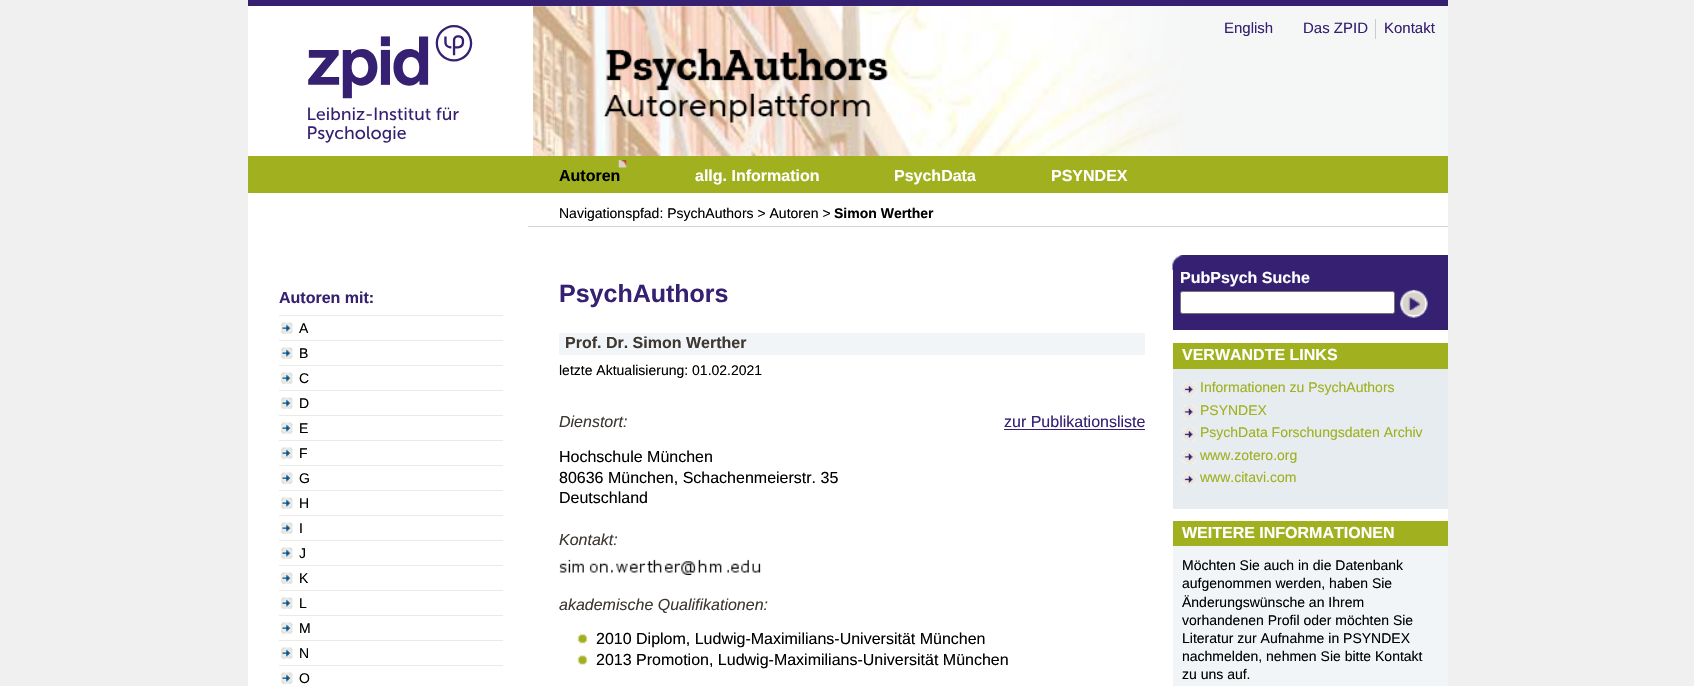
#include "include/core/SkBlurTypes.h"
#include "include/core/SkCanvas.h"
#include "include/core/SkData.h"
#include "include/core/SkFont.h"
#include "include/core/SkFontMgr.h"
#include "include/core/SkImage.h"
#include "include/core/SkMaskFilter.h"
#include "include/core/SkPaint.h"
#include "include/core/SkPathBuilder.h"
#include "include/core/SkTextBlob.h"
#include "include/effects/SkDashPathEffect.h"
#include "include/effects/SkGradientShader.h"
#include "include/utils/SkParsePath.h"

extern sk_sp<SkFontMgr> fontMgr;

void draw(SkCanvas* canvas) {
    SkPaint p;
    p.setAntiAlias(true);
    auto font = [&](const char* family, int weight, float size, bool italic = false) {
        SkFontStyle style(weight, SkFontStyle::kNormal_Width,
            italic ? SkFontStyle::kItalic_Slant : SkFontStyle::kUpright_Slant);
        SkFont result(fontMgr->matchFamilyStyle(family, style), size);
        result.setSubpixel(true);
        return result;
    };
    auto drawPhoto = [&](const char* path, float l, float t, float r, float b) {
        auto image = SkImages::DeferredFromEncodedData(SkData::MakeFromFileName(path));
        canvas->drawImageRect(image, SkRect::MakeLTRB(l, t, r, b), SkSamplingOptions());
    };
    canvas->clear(0xFFF0F0F0);
    p.setColor(0xFF352071);
    canvas->drawRect(SkRect::MakeLTRB(248, 0, 1448, 6), p);
    p.setColor(0xFFF5F6F6);
    canvas->drawRect(SkRect::MakeLTRB(533, 6, 1448, 156), p);
    drawPhoto("media/1.png", 533, 6, 1182, 156);
    p.setColor(0xFFFFFFFF);
    canvas->drawRect(SkRect::MakeLTRB(248, 6, 533, 156), p);
    drawPhoto("media/2.png", 308, 25, 473, 143);
    auto font1 = font("Liberation Sans", 400, 15);
    p.setColor(0xFF352071);
    canvas->drawString("English", 1224, 33, font1, p);
    canvas->drawString("Das ZPID", 1303, 33, font1, p);
    p.setColor(0xFFCCCCCC);
    canvas->drawRect(SkRect::MakeLTRB(1375, 19, 1376, 39), p);
    p.setColor(0xFF352071);
    canvas->drawString("Kontakt", 1384, 33, font1, p);
    p.setColor(0xFFA0B01E);
    canvas->drawRect(SkRect::MakeLTRB(248, 156, 1448, 193), p);
    drawPhoto("media/3.png", 618, 160, 627, 168);
    auto font2 = font("Liberation Sans", 700, 16);
    p.setColor(0xFF000000);
    canvas->drawString("Autoren", 559, 181, font2, p);
    p.setColor(0xFFFFFFFF);
    {
        const struct { const char* s; float x, y; } items[] = {
            {"allg. Information", 695, 181},
            {"PsychData", 894, 181},
            {"PSYNDEX", 1051, 181},
        };
        for (auto [s, x, y] : items) {
            canvas->drawString(s, x, y, font2, p);
        }
    }
    canvas->drawRect(SkRect::MakeLTRB(248, 193, 1448, 686), p);
    p.setColor(0xFFD8D4CB);
    canvas->drawRect(SkRect::MakeLTRB(528, 226, 1448, 227), p);
    auto font3 = font("Liberation Sans", 400, 14);
    p.setColor(0xFF000000);
    canvas->drawString("Navigationspfad: PsychAuthors > Autoren >", 559, 218, font3, p);
    auto font4 = font("Liberation Sans", 700, 14);
    canvas->drawString("Simon Werther", 834, 218, font4, p);
    p.setColor(0xFF352071);
    canvas->drawString("Autoren mit:", 279, 303, font2, p);
    p.setColor(0xFFECEAE5);
    canvas->drawRect(SkRect::MakeLTRB(279, 315, 503, 316), p);
    drawPhoto("media/4.png", 281, 322, 293, 334);
    canvas->drawRect(SkRect::MakeLTRB(279, 340, 503, 341), p);
    p.setColor(0xFF000000);
    canvas->drawString("A", 299, 333, font3, p);
    drawPhoto("media/4.png", 281, 347, 293, 359);
    p.setColor(0xFFECEAE5);
    canvas->drawRect(SkRect::MakeLTRB(279, 365, 503, 366), p);
    p.setColor(0xFF000000);
    canvas->drawString("B", 299, 358, font3, p);
    drawPhoto("media/4.png", 281, 372, 293, 384);
    p.setColor(0xFFECEAE5);
    canvas->drawRect(SkRect::MakeLTRB(279, 390, 503, 391), p);
    p.setColor(0xFF000000);
    canvas->drawString("C", 299, 383, font3, p);
    drawPhoto("media/4.png", 281, 397, 293, 409);
    p.setColor(0xFFECEAE5);
    canvas->drawRect(SkRect::MakeLTRB(279, 415, 503, 416), p);
    p.setColor(0xFF000000);
    canvas->drawString("D", 299, 408, font3, p);
    drawPhoto("media/4.png", 281, 422, 293, 434);
    p.setColor(0xFFECEAE5);
    canvas->drawRect(SkRect::MakeLTRB(279, 440, 503, 441), p);
    p.setColor(0xFF000000);
    canvas->drawString("E", 299, 433, font3, p);
    drawPhoto("media/4.png", 281, 447, 293, 459);
    p.setColor(0xFFECEAE5);
    canvas->drawRect(SkRect::MakeLTRB(279, 465, 503, 466), p);
    p.setColor(0xFF000000);
    canvas->drawString("F", 299, 458, font3, p);
    drawPhoto("media/4.png", 281, 472, 293, 484);
    p.setColor(0xFFECEAE5);
    canvas->drawRect(SkRect::MakeLTRB(279, 490, 503, 491), p);
    p.setColor(0xFF000000);
    canvas->drawString("G", 299, 483, font3, p);
    drawPhoto("media/4.png", 281, 497, 293, 509);
    p.setColor(0xFFECEAE5);
    canvas->drawRect(SkRect::MakeLTRB(279, 515, 503, 516), p);
    p.setColor(0xFF000000);
    canvas->drawString("H", 299, 508, font3, p);
    drawPhoto("media/4.png", 281, 522, 293, 534);
    p.setColor(0xFFECEAE5);
    canvas->drawRect(SkRect::MakeLTRB(279, 540, 503, 541), p);
    p.setColor(0xFF000000);
    canvas->drawString("I", 299, 533, font3, p);
    drawPhoto("media/4.png", 281, 547, 293, 559);
    p.setColor(0xFFECEAE5);
    canvas->drawRect(SkRect::MakeLTRB(279, 565, 503, 566), p);
    p.setColor(0xFF000000);
    canvas->drawString("J", 299, 558, font3, p);
    drawPhoto("media/4.png", 281, 572, 293, 584);
    p.setColor(0xFFECEAE5);
    canvas->drawRect(SkRect::MakeLTRB(279, 590, 503, 591), p);
    p.setColor(0xFF000000);
    canvas->drawString("K", 299, 583, font3, p);
    drawPhoto("media/4.png", 281, 597, 293, 609);
    p.setColor(0xFFECEAE5);
    canvas->drawRect(SkRect::MakeLTRB(279, 615, 503, 616), p);
    p.setColor(0xFF000000);
    canvas->drawString("L", 299, 608, font3, p);
    drawPhoto("media/4.png", 281, 622, 293, 634);
    p.setColor(0xFFECEAE5);
    canvas->drawRect(SkRect::MakeLTRB(279, 640, 503, 641), p);
    p.setColor(0xFF000000);
    canvas->drawString("M", 299, 633, font3, p);
    drawPhoto("media/4.png", 281, 647, 293, 659);
    p.setColor(0xFFECEAE5);
    canvas->drawRect(SkRect::MakeLTRB(279, 665, 503, 666), p);
    p.setColor(0xFF000000);
    canvas->drawString("N", 299, 658, font3, p);
    drawPhoto("media/4.png", 281, 672, 293, 684);
    canvas->drawString("O", 299, 683, font3, p);
    auto font5 = font("Liberation Sans", 700, 25);
    p.setColor(0xFF352071);
    canvas->drawString("PsychAuthors", 559, 302, font5, p);
    p.setColor(0xFFF2F5F7);
    canvas->drawRect(SkRect::MakeLTRB(559, 333, 1145, 355), p);
    p.setColor(0xFF3D3831);
    canvas->drawString("Prof. Dr. Simon Werther", 565, 348, font2, p);
    p.setColor(0xFF000000);
    canvas->drawString("letzte Aktualisierung: 01.02.2021", 559, 375, font3, p);
    auto font6 = font("Liberation Sans", 400, 16, true);
    p.setColor(0xFF3D3831);
    canvas->drawString("Dienstort:", 559, 427, font6, p);
    auto font7 = font("Liberation Sans", 400, 16);
    p.setColor(0xFF352071);
    canvas->drawString("zur Publikationsliste", 1004, 427, font7, p);
    canvas->drawRect(SkRect::MakeLTRB(1004, 429, 1145, 430), p);
    p.setColor(0xFF000000);
    {
        const struct { const char* s; float x, y; } items[] = {
            {"Hochschule München", 559, 462},
            {"80636 München, Schachenmeierstr. 35", 559, 483},
            {"Deutschland", 559, 503},
        };
        for (auto [s, x, y] : items) {
            canvas->drawString(s, x, y, font7, p);
        }
    }
    p.setColor(0xFF3D3831);
    canvas->drawString("Kontakt:", 559, 545, font6, p);
    drawPhoto("media/5.png", 559, 559, 761, 575);
    canvas->drawString("akademische Qualifikationen:", 559, 610, font6, p);
    drawPhoto("media/6.png", 577, 633, 588, 644);
    p.setColor(0xFF000000);
    canvas->drawString("2010 Diplom, Ludwig-Maximilians-Universität München", 596, 644, font7, p);
    drawPhoto("media/7.png", 577, 655, 588, 665);
    canvas->drawString("2013 Promotion, Ludwig-Maximilians-Universität München", 596, 665, font7, p);
    p.setColor(0xFF352071);
    canvas->drawRect(SkRect::MakeLTRB(1173, 255, 1448, 330), p);
    drawPhoto("media/8.png", 1172, 255, 1184, 270);
    p.setColor(0xFFFFFFFF);
    canvas->drawString("PubPsych Suche", 1180, 283, font2, p);
    canvas->drawRoundRect(SkRect::MakeLTRB(1180.5f, 291.5f, 1394.5f, 313.5f), 2, 2, p);
    p.setStyle(SkPaint::kStroke_Style);
    p.setStrokeWidth(1);
    p.setColor(0xFF767676);
    canvas->drawRoundRect(SkRect::MakeLTRB(1180.5f, 291.5f, 1394.5f, 313.5f), 2, 2, p);
    drawPhoto("media/9.png", 1399, 289, 1428, 318);
    p.setStyle(SkPaint::kFill_Style);
    p.setColor(0xFFE6ECF0);
    canvas->drawRect(SkRect::MakeLTRB(1173, 369, 1448, 509), p);
    p.setColor(0xFFA0B01E);
    canvas->drawRect(SkRect::MakeLTRB(1173, 343, 1448, 369), p);
    p.setColor(0xFFFFFFFF);
    canvas->drawString("VERWANDTE LINKS", 1182, 360, font2, p);
    drawPhoto("media/10.png", 1182, 382, 1197, 397);
    p.setColor(0xFFA0B01E);
    canvas->drawString("Informationen zu PsychAuthors", 1200, 392, font3, p);
    drawPhoto("media/11.png", 1182, 405, 1197, 419);
    canvas->drawString("PSYNDEX", 1200, 415, font3, p);
    drawPhoto("media/10.png", 1182, 427, 1197, 442);
    canvas->drawString("PsychData Forschungsdaten Archiv", 1200, 437, font3, p);
    drawPhoto("media/11.png", 1182, 450, 1197, 464);
    canvas->drawString("www.zotero.org", 1200, 460, font3, p);
    drawPhoto("media/10.png", 1182, 472, 1197, 487);
    canvas->drawString("www.citavi.com", 1200, 482, font3, p);
    p.setColor(0xFFF2F5F7);
    canvas->drawRect(SkRect::MakeLTRB(1173, 546, 1448, 686), p);
    p.setColor(0xFFA0B01E);
    canvas->drawRect(SkRect::MakeLTRB(1173, 521, 1448, 546), p);
    p.setColor(0xFFFFFFFF);
    canvas->drawString("WEITERE INFORMATIONEN", 1182, 538, font2, p);
    p.setColor(0xFF000000);
    {
        const struct { const char* s; float x, y; } items[] = {
            {"Möchten Sie auch in die Datenbank", 1182, 570},
            {"aufgenommen werden, haben Sie", 1182, 588},
            {"Änderungswünsche an Ihrem", 1182, 607},
            {"vorhandenen Profil oder möchten Sie", 1182, 625},
            {"Literatur zur Aufnahme in PSYNDEX", 1182, 643},
            {"nachmelden, nehmen Sie bitte Kontakt", 1182, 661},
            {"zu uns auf.", 1182, 679},
        };
        for (auto [s, x, y] : items) {
            canvas->drawString(s, x, y, font3, p);
        }
    }
}
